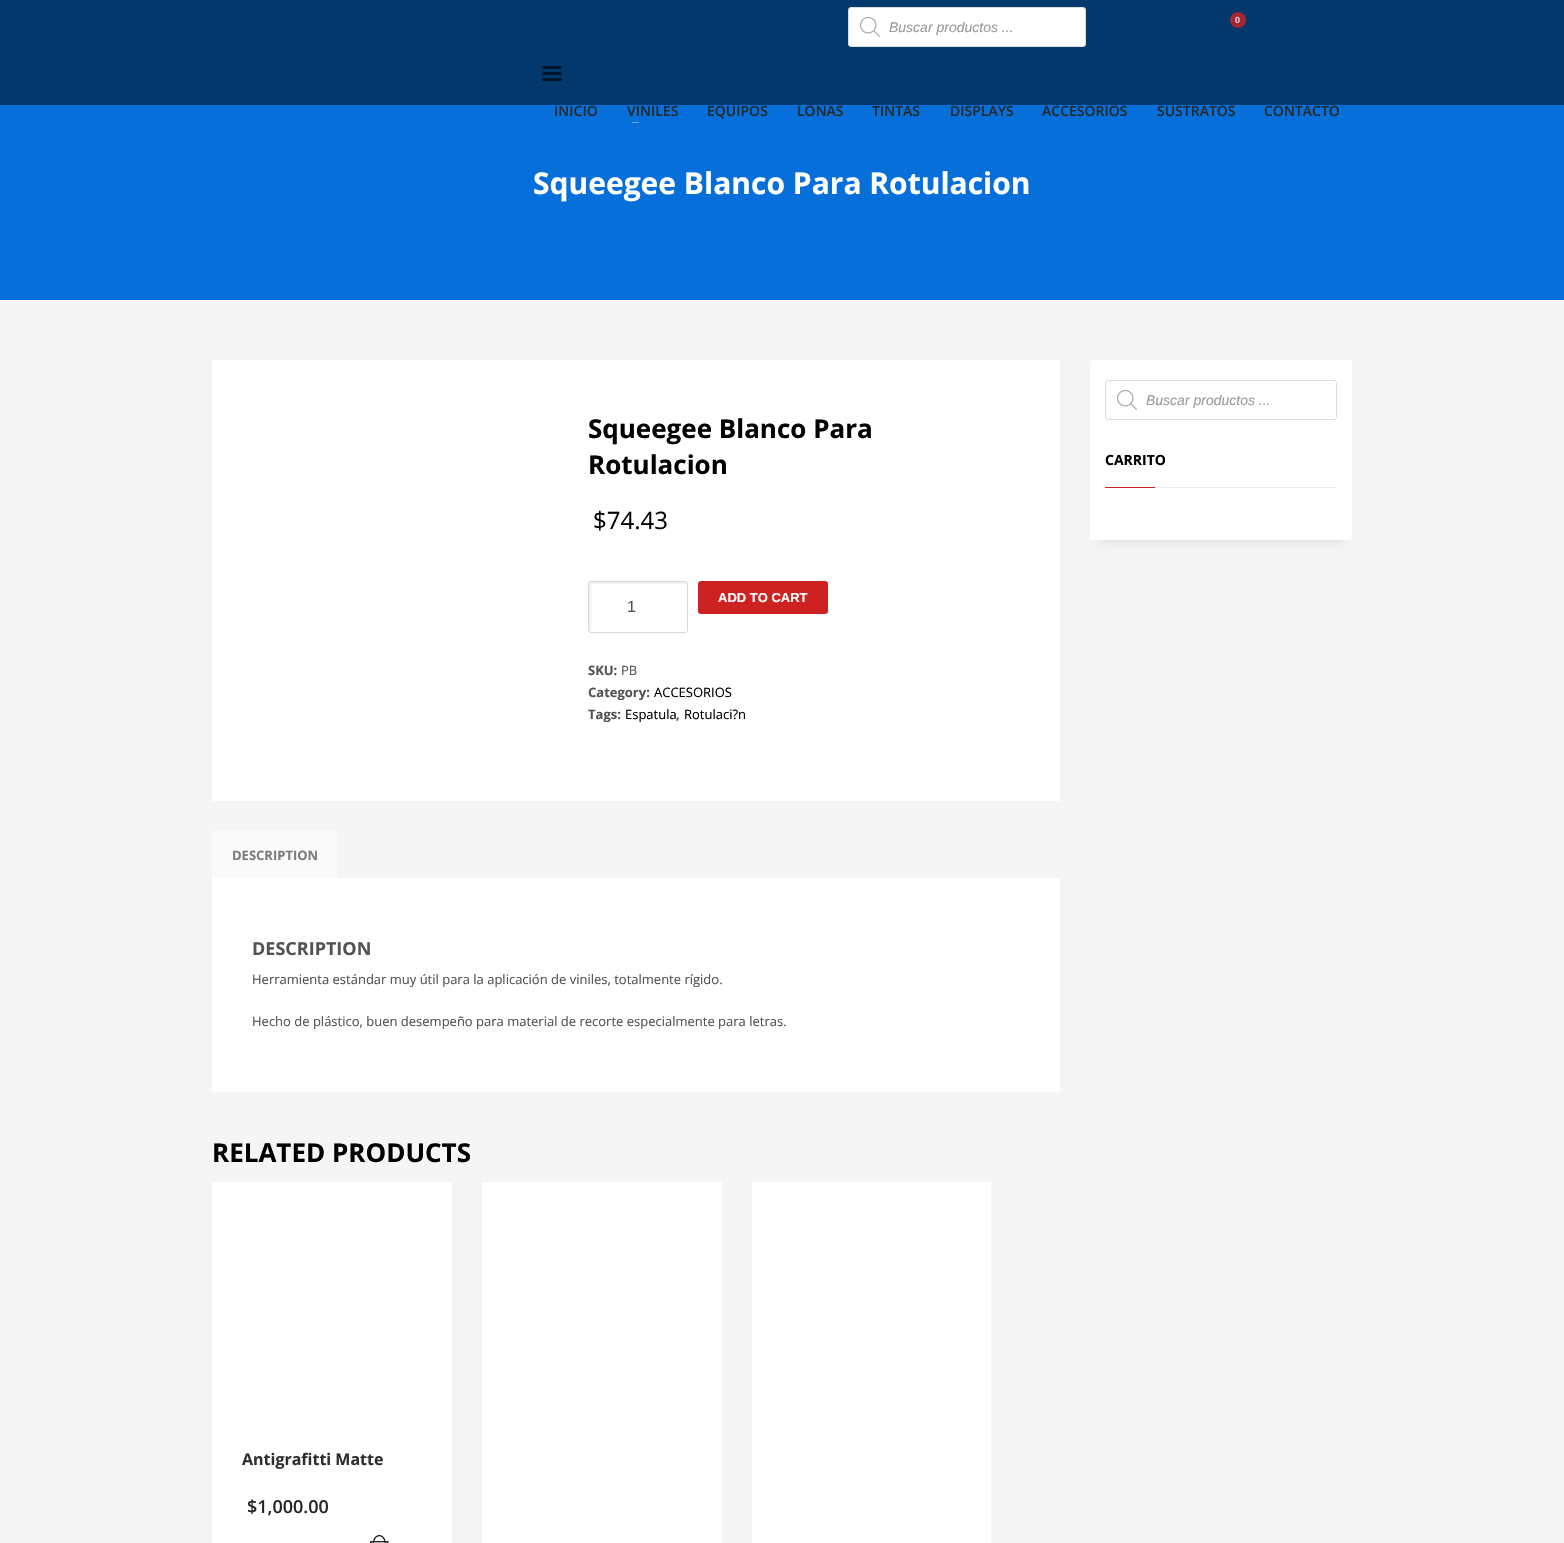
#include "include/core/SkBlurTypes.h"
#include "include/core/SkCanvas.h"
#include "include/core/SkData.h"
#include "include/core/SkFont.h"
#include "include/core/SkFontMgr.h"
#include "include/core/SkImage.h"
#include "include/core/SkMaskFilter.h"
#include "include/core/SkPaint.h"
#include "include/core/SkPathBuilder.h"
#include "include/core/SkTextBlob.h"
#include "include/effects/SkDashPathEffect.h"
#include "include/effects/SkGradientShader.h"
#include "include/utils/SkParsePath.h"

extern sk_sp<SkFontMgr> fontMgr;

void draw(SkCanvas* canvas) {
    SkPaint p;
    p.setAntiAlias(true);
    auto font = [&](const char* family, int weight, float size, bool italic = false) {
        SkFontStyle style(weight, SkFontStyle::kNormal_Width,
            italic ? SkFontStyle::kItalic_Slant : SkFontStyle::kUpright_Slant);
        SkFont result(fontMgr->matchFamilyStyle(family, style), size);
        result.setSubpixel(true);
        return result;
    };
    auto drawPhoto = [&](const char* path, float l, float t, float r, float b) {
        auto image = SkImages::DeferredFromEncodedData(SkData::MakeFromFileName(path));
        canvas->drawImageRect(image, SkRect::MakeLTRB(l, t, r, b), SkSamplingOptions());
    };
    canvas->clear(0xFFF5F5F5);
    p.setColor(0xFFFAFAFA);
    canvas->drawRect(SkRect::MakeLTRB(212, 831, 338, 878), p);
    p.setColor(0xFF03386C);
    canvas->drawRect(SkRect::MakeLTRB(0, 0, 1564, 105), p);
    p.setColor(0xFFA52631);
    canvas->drawCircle(1238, 20, 8, p);
    auto font1 = font("Liberation Sans", 700, 9);
    p.setColor(0xFFCDD7E2);
    canvas->drawString("0", 1235, 23, font1, p);
    p.setColor(0xFFFFFFFF);
    canvas->drawRoundRect(SkRect::MakeLTRB(848.5f, 7.5f, 1085.5f, 46.5f), 2.5f, 2.5f, p);
    p.setStyle(SkPaint::kStroke_Style);
    p.setStrokeWidth(1);
    p.setColor(0xFFDDDDDD);
    canvas->drawRoundRect(SkRect::MakeLTRB(848.5f, 7.5f, 1085.5f, 46.5f), 2.5f, 2.5f, p);
    drawPhoto("media/1.png", 860, 17, 880, 37);
    auto font2 = font("Liberation Sans", 400, 14, true);
    p.setStyle(SkPaint::kFill_Style);
    p.setColor(0xFF999999);
    canvas->drawString("Buscar productos ...", 889, 32, font2, p);
    p.setColor(0xFF02162C);
    canvas->drawRoundRect(SkRect::MakeLTRB(542, 66, 562, 69), 1.5f, 1.5f, p);
    canvas->drawRoundRect(SkRect::MakeLTRB(542, 72, 562, 75), 1.5f, 1.5f, p);
    canvas->drawRoundRect(SkRect::MakeLTRB(542, 78, 562, 81), 1.5f, 1.5f, p);
    p.setColor(0xFF066FD9);
    canvas->drawRect(SkRect::MakeLTRB(0, 105, 1564, 300), p);
    auto font3 = font("Open Sans", 600, 14);
    p.setColor(0xFF282828);
    canvas->drawString("INICIO", 554, 116, font3, p);
    canvas->drawString("VINILES", 627, 116, font3, p);
    p.setColor(0xFF6AA9E8);
    canvas->drawRect(SkRect::MakeLTRB(632, 122, 639, 123), p);
    p.setColor(0xFF282828);
    {
        const struct { const char* s; float x, y; } items[] = {
            {"EQUIPOS", 707, 116},
            {"LONAS", 797, 116},
            {"TINTAS", 872, 116},
            {"DISPLAYS", 950, 116},
            {"ACCESORIOS", 1042, 116},
            {"SUSTRATOS", 1157, 116},
            {"CONTACTO", 1264, 116},
        };
        for (auto [s, x, y] : items) {
            canvas->drawString(s, x, y, font3, p);
        }
    }
    auto font4 = font("Open Sans", 700, 30);
    p.setColor(0xFFFFFFFF);
    canvas->drawString("Squeegee Blanco Para Rotulacion", 533, 194, font4, p);
    canvas->drawRect(SkRect::MakeLTRB(212, 360, 1060, 801), p);
    auto font5 = font("Open Sans", 700, 26);
    p.setColor(0xFF000000);
    canvas->drawString("Squeegee Blanco Para", 588, 438, font5, p);
    canvas->drawString("Rotulacion", 588, 474, font5, p);
    auto font6 = font("Open Sans", 400, 24);
    canvas->drawString("$74.43", 593, 529, font6, p);
    p.setColor(0xFFCD2122);
    canvas->drawRoundRect(SkRect::MakeLTRB(698, 581, 828, 614), 3, 3, p);
    auto font7 = font("Liberation Sans", 700, 13);
    p.setColor(0xFFFFFFFF);
    canvas->drawString("ADD TO CART", 718, 602, font7, p);
    p.setColor(0xFFF2F2F2);
    canvas->drawPath(SkPathBuilder().moveTo(593, 584).lineTo(687, 584).cubicTo(687, 583, 686, 582, 685, 582).lineTo(591, 582).cubicTo(590, 582, 589, 583, 589, 584).lineTo(589, 630).cubicTo(589, 631, 590, 632, 591, 632).lineTo(591, 586).cubicTo(591, 585, 592, 584, 593, 584).close().detach(), p);
    p.setStyle(SkPaint::kStroke_Style);
    p.setColor(0xFFD9D9D9);
    canvas->drawRoundRect(SkRect::MakeLTRB(588.5f, 581.5f, 687.5f, 632.5f), 2.5f, 2.5f, p);
    auto font8 = font("Liberation Sans", 400, 16);
    p.setStyle(SkPaint::kFill_Style);
    p.setColor(0xFF535353);
    canvas->drawString("1", 627, 612, font8, p);
    auto font9 = font("Open Sans", 700, 13);
    canvas->drawString("SKU:", 588, 675, font9, p);
    auto font10 = font("Open Sans", 400, 13);
    canvas->drawString("PB", 621, 675, font10, p);
    canvas->drawString("Category:", 588, 697, font9, p);
    p.setColor(0xFF000000);
    canvas->drawString("ACCESORIOS", 654, 697, font10, p);
    p.setColor(0xFF535353);
    canvas->drawString("Tags:", 588, 719, font9, p);
    p.setColor(0xFF000000);
    canvas->drawString("Espatula", 625, 719, font10, p);
    p.setColor(0xFF535353);
    canvas->drawString(",", 676, 719, font9, p);
    p.setColor(0xFF000000);
    canvas->drawString("Rotulaci?n", 684, 719, font10, p);
    p.setColor(0xFF7B7B7B);
    canvas->drawString("DESCRIPTION", 232, 860, font9, p);
    p.setColor(0xFFFFFFFF);
    canvas->drawRect(SkRect::MakeLTRB(212, 878, 1060, 1092), p);
    auto font11 = font("Open Sans", 700, 18);
    p.setColor(0xFF535353);
    canvas->drawString("DESCRIPTION", 252, 955, font11, p);
    canvas->drawString("Herramienta estándar muy útil para la aplicación de viniles, totalmente rígido.", 252, 984, font10, p);
    canvas->drawString("Hecho de plástico, buen desempeño para material de recorte especialmente para letras.", 252, 1026, font10, p);
    p.setColor(0xFF000000);
    canvas->drawString("RELATED PRODUCTS", 212, 1162, font5, p);
    p.setColor(0xFFFFFFFF);
    canvas->drawRect(SkRect::MakeLTRB(212, 1182, 452, 1543), p);
    auto font12 = font("Open Sans", 700, 16);
    p.setColor(0xFF2F2F2F);
    canvas->drawString("Antigrafitti Matte", 242, 1465, font12, p);
    auto font13 = font("Open Sans", 600, 18);
    p.setColor(0xFF282828);
    canvas->drawString("$1,000.00", 247, 1513, font13, p);
    drawPhoto("media/2.png", 370, 1535, 389, 1543);
    p.setColor(0xFFFFFFFF);
    canvas->drawRect(SkRect::MakeLTRB(482, 1182, 722, 1543), p);
    canvas->drawRect(SkRect::MakeLTRB(752, 1182, 991, 1543), p);
    p.setColor(0x26000000);
    p.setMaskFilter(SkMaskFilter::MakeBlur(kNormal_SkBlurStyle, 5));
    canvas->drawRect(SkRect::MakeLTRB(1100, 380, 1342, 540), p);
    p.setMaskFilter(nullptr);
    p.setColor(0xFFFFFFFF);
    canvas->drawRoundRect(SkRect::MakeLTRB(1090, 360, 1352, 540), 3, 3, p);
    p.setStyle(SkPaint::kStroke_Style);
    p.setColor(0xFFDDDDDD);
    canvas->drawRoundRect(SkRect::MakeLTRB(1105.5f, 380.5f, 1336.5f, 419.5f), 2.5f, 2.5f, p);
    drawPhoto("media/1.png", 1117, 390, 1137, 410);
    p.setStyle(SkPaint::kFill_Style);
    p.setColor(0xFF999999);
    canvas->drawString("Buscar productos ...", 1146, 405, font2, p);
    auto font14 = font("Open Sans", 700, 14);
    p.setColor(0xFF000000);
    canvas->drawString("CARRITO", 1105, 465, font14, p);
    p.setColor(0xFFCD2122);
    canvas->drawRect(SkRect::MakeLTRB(1105, 487, 1155, 488), p);
    p.setColor(0xFFECECEC);
    canvas->drawRect(SkRect::MakeLTRB(1155, 487, 1337, 488), p);
}
